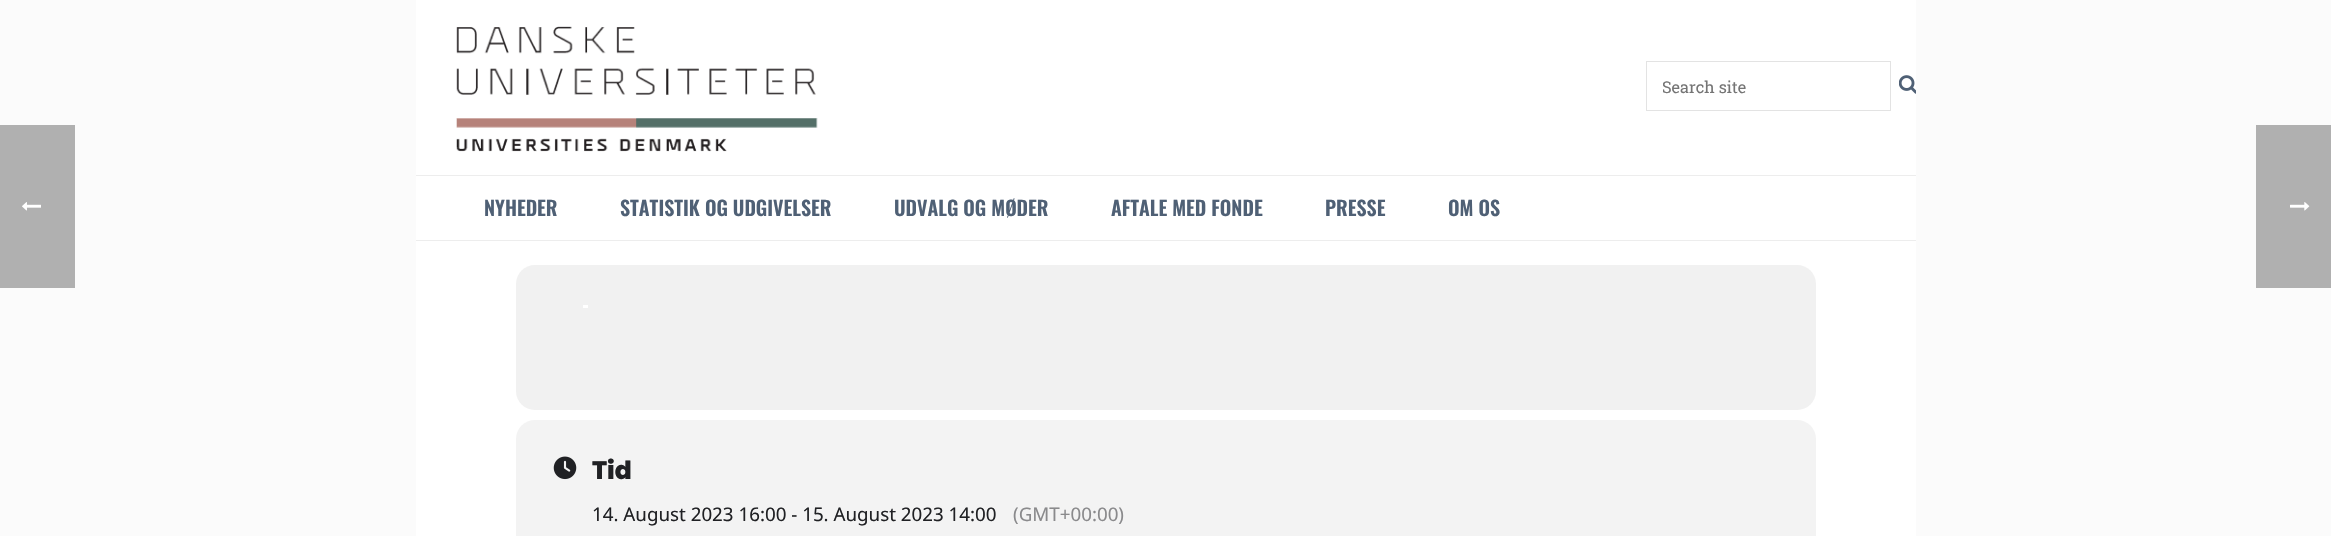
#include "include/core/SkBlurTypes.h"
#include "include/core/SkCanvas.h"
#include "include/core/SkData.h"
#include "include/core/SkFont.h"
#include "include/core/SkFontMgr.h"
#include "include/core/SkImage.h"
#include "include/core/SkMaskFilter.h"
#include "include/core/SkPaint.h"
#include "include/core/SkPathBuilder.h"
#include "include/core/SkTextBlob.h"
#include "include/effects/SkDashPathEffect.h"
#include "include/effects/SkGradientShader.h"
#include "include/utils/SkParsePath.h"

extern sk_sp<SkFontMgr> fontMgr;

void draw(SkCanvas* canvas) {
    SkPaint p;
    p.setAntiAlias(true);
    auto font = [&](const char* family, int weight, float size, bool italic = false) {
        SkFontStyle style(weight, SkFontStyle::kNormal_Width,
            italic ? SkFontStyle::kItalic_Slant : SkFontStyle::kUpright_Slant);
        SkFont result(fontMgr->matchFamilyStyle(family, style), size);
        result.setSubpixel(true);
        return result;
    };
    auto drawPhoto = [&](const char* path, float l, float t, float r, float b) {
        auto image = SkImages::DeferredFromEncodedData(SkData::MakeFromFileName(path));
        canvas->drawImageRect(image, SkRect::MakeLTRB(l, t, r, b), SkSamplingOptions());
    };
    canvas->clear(0xFFFBFBFB);
    p.setColor(0xFFB0B0B0);
    canvas->drawRect(SkRect::MakeLTRB(0, 125, 75, 288), p);
    drawPhoto("media/1.png", 22, 202, 41, 211);
    {
        const struct { float l, t, r, b; SkColor color; } items[] = {
            {416, 241, 1916, 536, 0xFFFFFFFF},
            {416, 240, 1916, 241, 0xFFEDEDED},
            {416, 0, 1916, 240, 0xFFFFFFFF},
        };
        for (auto [l, t, r, b, color] : items) {
            p.setColor(color);
            canvas->drawRect(SkRect::MakeLTRB(l, t, r, b), p);
        }
    }
    drawPhoto("media/2.png", 456, 26, 818, 152);
    p.setStyle(SkPaint::kStroke_Style);
    p.setStrokeWidth(1);
    p.setColor(0xFFE3E3E3);
    canvas->drawRect(SkRect::MakeLTRB(1646.5f, 61.5f, 1890.5f, 110.5f), p);
    canvas->save();
    canvas->clipRect(SkRect::MakeLTRB(1663, 75, 1875, 98));
    auto font1 = font("Roboto Slab", 400, 16.25f);
    p.setStyle(SkPaint::kFill_Style);
    p.setColor(0xFF757575);
    canvas->drawString("Search site", 1662, 93, font1, p);
    canvas->restore();
    drawPhoto("media/3.png", 1899, 75, 1916, 94);
    p.setColor(0xFFEDEDED);
    canvas->drawRect(SkRect::MakeLTRB(416, 175, 1916, 176), p);
    auto font2 = font("Oswald", 600, 20);
    p.setColor(0xFF4F6075);
    {
        const struct { const char* s; float x, y; } items[] = {
            {"NYHEDER", 484, 216},
            {"STATISTIK OG UDGIVELSER", 620, 216},
            {"UDVALG OG MØDER", 894, 216},
            {"AFTALE MED FONDE", 1111, 216},
            {"PRESSE", 1325, 216},
            {"OM OS", 1448, 216},
        };
        for (auto [s, x, y] : items) {
            canvas->drawString(s, x, y, font2, p);
        }
    }
    p.setColor(0xFFF1F1F1);
    canvas->drawRoundRect(SkRect::MakeLTRB(516, 265, 1816, 410), 19, 19, p);
    p.setColor(0xFFFFFFFF);
    canvas->drawRect(SkRect::MakeLTRB(583, 305, 588, 308), p);
    p.setColor(0xFFF3F3F3);
    canvas->drawRoundRect(SkRect::MakeLTRB(516, 420, 1816, 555), 19, 19, p);
    drawPhoto("media/4.png", 553, 456, 577, 480);
    auto font3 = font("Poppins", 800, 25);
    p.setColor(0xFF202124);
    canvas->drawString("Tid", 592, 479, font3, p);
    auto font4 = font("Noto Sans", 400, 18.75f);
    canvas->drawString("14. August 2023 16:00 - 15. August 2023 14:00", 592, 521, font4, p);
    p.setColor(0xFF8A8A8C);
    canvas->drawString("(GMT+00:00)", 1013, 521, font4, p);
    p.setColor(0xFFB0B0B0);
    canvas->drawRect(SkRect::MakeLTRB(2256, 125, 2331, 288), p);
    drawPhoto("media/5.png", 2290, 202, 2310, 211);
}
